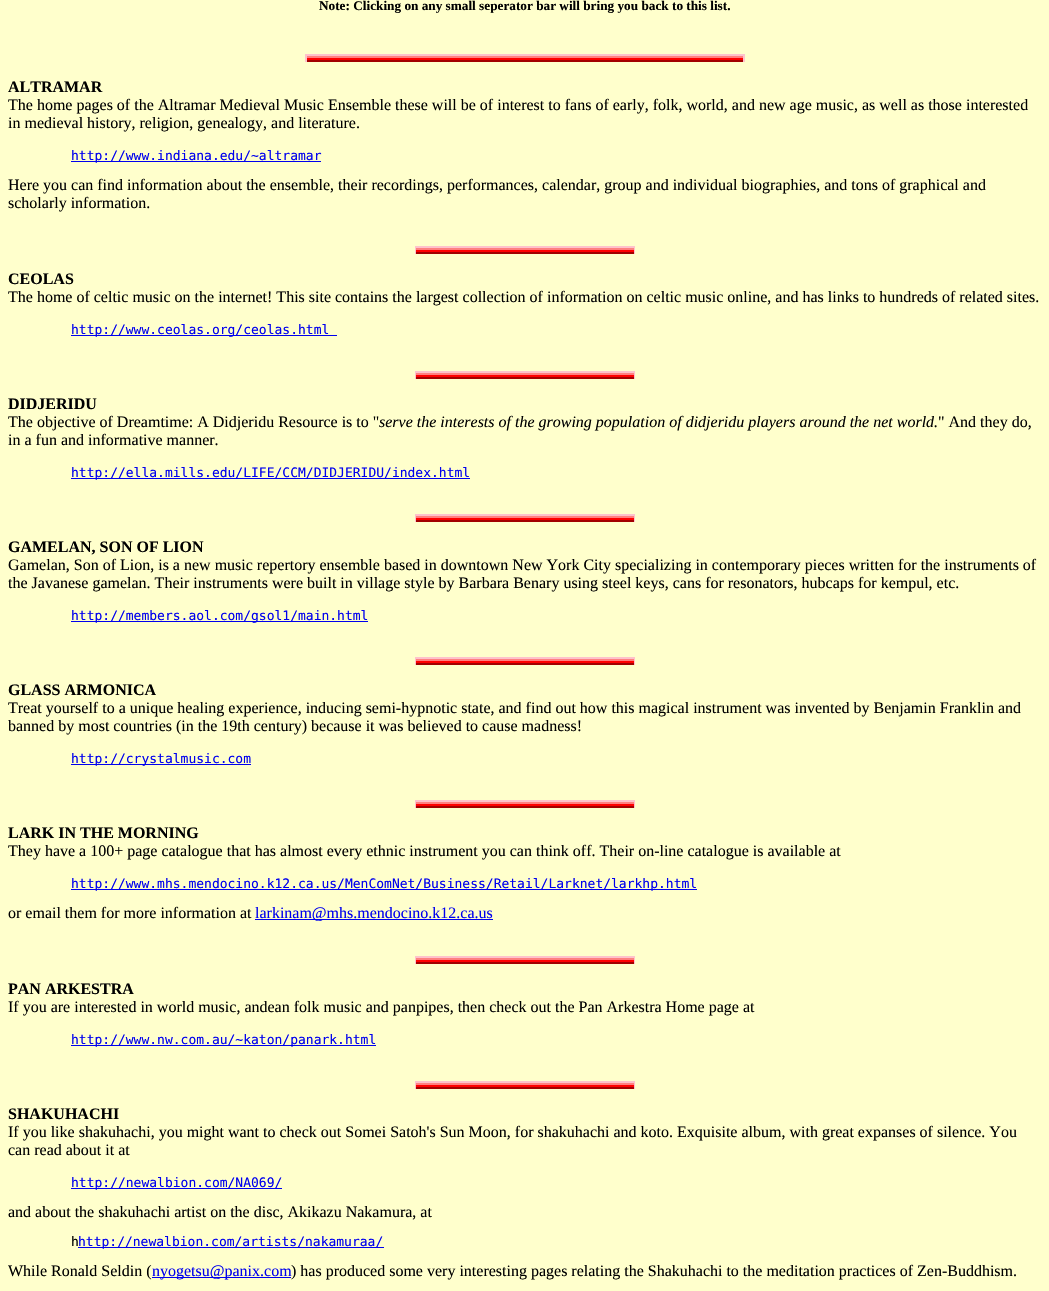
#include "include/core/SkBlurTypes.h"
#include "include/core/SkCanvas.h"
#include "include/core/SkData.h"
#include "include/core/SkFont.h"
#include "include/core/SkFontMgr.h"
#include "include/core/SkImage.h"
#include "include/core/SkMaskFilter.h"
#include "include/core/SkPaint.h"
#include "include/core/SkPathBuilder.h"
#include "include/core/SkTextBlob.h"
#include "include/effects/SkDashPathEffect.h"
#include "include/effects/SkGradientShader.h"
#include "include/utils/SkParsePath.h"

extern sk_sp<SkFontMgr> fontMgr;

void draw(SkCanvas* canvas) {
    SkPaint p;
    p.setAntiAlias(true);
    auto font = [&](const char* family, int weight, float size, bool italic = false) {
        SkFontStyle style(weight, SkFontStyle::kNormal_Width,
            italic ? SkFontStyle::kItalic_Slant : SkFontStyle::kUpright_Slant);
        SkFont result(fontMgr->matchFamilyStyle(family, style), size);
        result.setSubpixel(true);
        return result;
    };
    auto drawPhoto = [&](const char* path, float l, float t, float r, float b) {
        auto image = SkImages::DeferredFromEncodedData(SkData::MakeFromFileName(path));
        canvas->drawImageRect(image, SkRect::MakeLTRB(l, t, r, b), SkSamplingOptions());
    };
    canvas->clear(0xFFFFFFCC);
    auto font1 = font("Liberation Serif", 700, 13.25f);
    p.setColor(0xFF000000);
    canvas->drawString("Note: Clicking on any small seperator bar will bring you back to this list.", 319, 10, font1, p);
    drawPhoto("media/1.png", 305, 54, 745, 62);
    auto font2 = font("Liberation Serif", 700, 16);
    canvas->drawString("ALTRAMAR", 8, 92, font2, p);
    auto font3 = font("Liberation Serif", 400, 16);
    canvas->drawString("The home pages of the Altramar Medieval Music Ensemble these will be of interest to fans of early, folk, world, and new age music, as well as those interested", 8, 110, font3, p);
    canvas->drawString("in medieval history, religion, genealogy, and literature.", 8, 128, font3, p);
    p.setColor(0xFF0000EE);
    canvas->drawRect(SkRect::MakeLTRB(71, 161, 321, 162), p);
    auto font4 = font("DejaVu Sans Mono", 400, 13);
    canvas->drawString("http://www.indiana.edu/~altramar", 71, 160, font4, p);
    p.setColor(0xFF000000);
    canvas->drawString("Here you can find information about the ensemble, their recordings, performances, calendar, group and individual biographies, and tons of graphical and", 8, 190, font3, p);
    canvas->drawString("scholarly information.", 8, 208, font3, p);
    drawPhoto("media/2.png", 415, 246, 635, 254);
    canvas->drawString("CEOLAS", 8, 284, font2, p);
    canvas->drawString("The home of celtic music on the internet! This site contains the largest collection of information on celtic music online, and has links to hundreds of related sites.", 8, 302, font3, p);
    p.setColor(0xFF0000EE);
    canvas->drawRect(SkRect::MakeLTRB(71, 335, 337, 336), p);
    canvas->drawString("http://www.ceolas.org/ceolas.html", 71, 334, font4, p);
    drawPhoto("media/2.png", 415, 371, 635, 379);
    p.setColor(0xFF000000);
    canvas->drawString("DIDJERIDU", 8, 409, font2, p);
    canvas->drawString("The objective of Dreamtime: A Didjeridu Resource is to \"", 8, 427, font3, p);
    auto font5 = font("Liberation Serif", 400, 16, true);
    canvas->drawString("serve the interests of the growing population of didjeridu players around the net world.", 379, 427, font5, p);
    canvas->drawString("\" And they do,", 938, 427, font3, p);
    canvas->drawString("in a fun and informative manner.", 8, 445, font3, p);
    p.setColor(0xFF0000EE);
    canvas->drawRect(SkRect::MakeLTRB(71, 478, 470, 479), p);
    canvas->drawString("http://ella.mills.edu/LIFE/CCM/DIDJERIDU/index.html", 71, 477, font4, p);
    drawPhoto("media/2.png", 415, 514, 635, 522);
    p.setColor(0xFF000000);
    canvas->drawString("GAMELAN, SON OF LION", 8, 552, font2, p);
    canvas->drawString("Gamelan, Son of Lion, is a new music repertory ensemble based in downtown New York City specializing in contemporary pieces written for the instruments of", 8, 570, font3, p);
    canvas->drawString("the Javanese gamelan. Their instruments were built in village style by Barbara Benary using steel keys, cans for resonators, hubcaps for kempul, etc.", 8, 588, font3, p);
    p.setColor(0xFF0000EE);
    canvas->drawRect(SkRect::MakeLTRB(71, 621, 368, 622), p);
    canvas->drawString("http://members.aol.com/gsol1/main.html", 71, 620, font4, p);
    drawPhoto("media/2.png", 415, 657, 635, 665);
    p.setColor(0xFF000000);
    canvas->drawString("GLASS ARMONICA", 8, 695, font2, p);
    canvas->drawString("Treat yourself to a unique healing experience, inducing semi-hypnotic state, and find out how this magical instrument was invented by Benjamin Franklin and", 8, 713, font3, p);
    canvas->drawString("banned by most countries (in the 19th century) because it was believed to cause madness!", 8, 731, font3, p);
    p.setColor(0xFF0000EE);
    canvas->drawRect(SkRect::MakeLTRB(71, 764, 251, 765), p);
    canvas->drawString("http://crystalmusic.com", 71, 763, font4, p);
    drawPhoto("media/2.png", 415, 800, 635, 808);
    p.setColor(0xFF000000);
    canvas->drawString("LARK IN THE MORNING", 8, 838, font2, p);
    canvas->drawString("They have a 100+ page catalogue that has almost every ethnic instrument you can think off. Their on-line catalogue is available at", 8, 856, font3, p);
    p.setColor(0xFF0000EE);
    canvas->drawRect(SkRect::MakeLTRB(71, 889, 697, 890), p);
    canvas->drawString("http://www.mhs.mendocino.k12.ca.us/MenComNet/Business/Retail/Larknet/larkhp.html", 71, 888, font4, p);
    p.setColor(0xFF000000);
    canvas->drawString("or email them for more information at", 8, 918, font3, p);
    p.setColor(0xFF0000EE);
    canvas->drawRect(SkRect::MakeLTRB(255, 919, 493, 920), p);
    canvas->drawString("larkinam@mhs.mendocino.k12.ca.us", 255, 918, font3, p);
    drawPhoto("media/2.png", 415, 956, 635, 964);
    p.setColor(0xFF000000);
    canvas->drawString("PAN ARKESTRA", 8, 994, font2, p);
    canvas->drawString("If you are interested in world music, andean folk music and panpipes, then check out the Pan Arkestra Home page at", 8, 1012, font3, p);
    p.setColor(0xFF0000EE);
    canvas->drawRect(SkRect::MakeLTRB(71, 1045, 376, 1046), p);
    canvas->drawString("http://www.nw.com.au/~katon/panark.html", 71, 1044, font4, p);
    drawPhoto("media/2.png", 415, 1081, 635, 1089);
    p.setColor(0xFF000000);
    canvas->drawString("SHAKUHACHI", 8, 1119, font2, p);
    canvas->drawString("If you like shakuhachi, you might want to check out Somei Satoh's Sun Moon, for shakuhachi and koto. Exquisite album, with great expanses of silence. You", 8, 1137, font3, p);
    canvas->drawString("can read about it at", 8, 1155, font3, p);
    p.setColor(0xFF0000EE);
    canvas->drawRect(SkRect::MakeLTRB(71, 1188, 282, 1189), p);
    canvas->drawString("http://newalbion.com/NA069/", 71, 1187, font4, p);
    p.setColor(0xFF000000);
    canvas->drawString("and about the shakuhachi artist on the disc, Akikazu Nakamura, at", 8, 1217, font3, p);
    canvas->drawString("h", 71, 1246, font4, p);
    p.setColor(0xFF0000EE);
    canvas->drawRect(SkRect::MakeLTRB(78, 1247, 384, 1248), p);
    canvas->drawString("http://newalbion.com/artists/nakamuraa/", 78, 1246, font4, p);
    p.setColor(0xFF000000);
    canvas->drawString("While Ronald Seldin (", 8, 1276, font3, p);
    p.setColor(0xFF0000EE);
    canvas->drawRect(SkRect::MakeLTRB(152, 1277, 291, 1278), p);
    canvas->drawString("nyogetsu@panix.com", 152, 1276, font3, p);
    p.setColor(0xFF000000);
    canvas->drawString(") has produced some very interesting pages relating the Shakuhachi to the meditation practices of Zen-Buddhism.", 291, 1276, font3, p);
}
